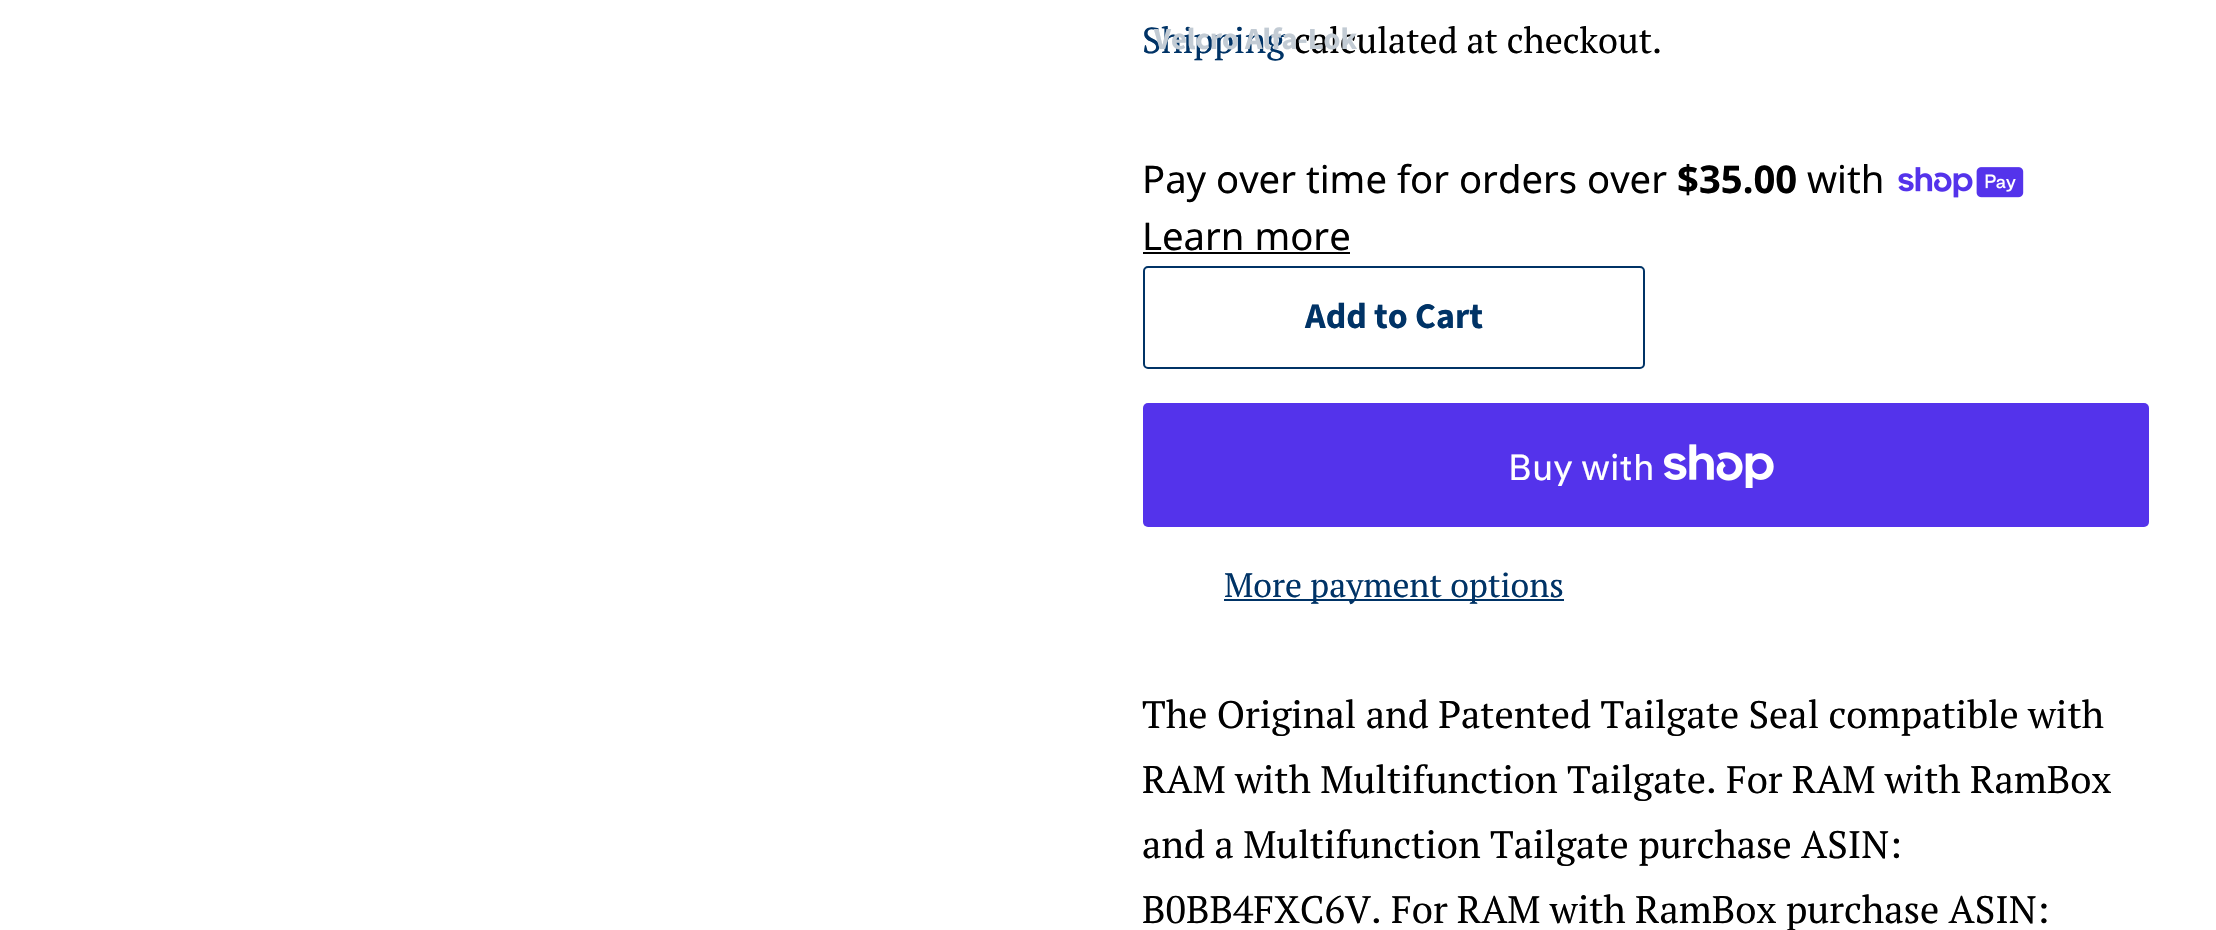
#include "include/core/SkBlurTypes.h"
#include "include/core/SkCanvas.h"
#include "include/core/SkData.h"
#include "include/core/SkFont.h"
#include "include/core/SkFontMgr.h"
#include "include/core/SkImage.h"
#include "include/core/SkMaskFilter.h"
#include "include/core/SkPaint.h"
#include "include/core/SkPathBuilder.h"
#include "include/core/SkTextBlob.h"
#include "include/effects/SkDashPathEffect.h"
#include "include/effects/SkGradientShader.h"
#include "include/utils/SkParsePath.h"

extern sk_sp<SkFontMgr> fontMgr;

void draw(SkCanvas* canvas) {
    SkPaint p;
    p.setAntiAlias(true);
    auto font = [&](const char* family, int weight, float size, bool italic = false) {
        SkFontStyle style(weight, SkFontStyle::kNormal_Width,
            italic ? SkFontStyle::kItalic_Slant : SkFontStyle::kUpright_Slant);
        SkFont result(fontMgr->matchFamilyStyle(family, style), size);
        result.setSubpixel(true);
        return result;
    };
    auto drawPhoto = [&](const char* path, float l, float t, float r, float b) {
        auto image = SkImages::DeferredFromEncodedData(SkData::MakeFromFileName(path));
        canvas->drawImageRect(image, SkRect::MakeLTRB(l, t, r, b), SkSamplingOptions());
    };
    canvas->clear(0xFFFFFFFF);
    auto font1 = font("PT Serif", 400, 36);
    p.setColor(0xFF003366);
    canvas->drawString("Shipping", 1142, 53, font1, p);
    p.setColor(0xFF000000);
    canvas->drawString("calculated at checkout.", 1294, 53, font1, p);
    auto font2 = font("Noto Sans", 400, 38.25f);
    canvas->drawString("Pay over time for orders over", 1142, 193, font2, p);
    auto font3 = font("Noto Sans", 700, 38.25f);
    canvas->drawString("$35.00", 1677, 193, font3, p);
    canvas->drawString("with", 1807, 193, font2, p);
    drawPhoto("media/1.png", 1898, 167, 2024, 198);
    canvas->drawString("Learn more", 1142, 250, font2, p);
    canvas->drawRect(SkRect::MakeLTRB(1143, 252, 1350, 254), p);
    p.setStyle(SkPaint::kStroke_Style);
    p.setStrokeWidth(2);
    p.setColor(0xFF003366);
    canvas->drawRoundRect(SkRect::MakeLTRB(1144, 267, 1644, 368), 4, 4, p);
    auto font4 = font("Source Sans Pro", 700, 36);
    p.setStyle(SkPaint::kFill_Style);
    canvas->drawString("Add to Cart", 1305, 328, font4, p);
    p.setColor(0xFF5433EB);
    canvas->drawRoundRect(SkRect::MakeLTRB(1143, 403, 2149, 527), 5, 5, p);
    auto font5 = font("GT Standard", 400, 36);
    p.setColor(0xFFFFFFFF);
    canvas->drawString("Buy with", 1508, 480, font5, p);
    drawPhoto("media/2.png", 1664, 444, 1774, 488);
    p.setColor(0xFF003366);
    canvas->drawRect(SkRect::MakeLTRB(1224, 599, 1564, 601), p);
    auto font6 = font("PT Serif", 400, 33.75f);
    canvas->drawString("More payment options", 1224, 597, font6, p);
    auto font7 = font("PT Serif", 400, 38.25f);
    p.setColor(0xFF000000);
    {
        const struct { const char* s; float x, y; } items[] = {
            {"The Original and Patented Tailgate Seal compatible with", 1142, 728},
            {"RAM with Multifunction Tailgate. For RAM with RamBox", 1142, 793},
            {"and a Multifunction Tailgate purchase ASIN:", 1142, 858},
            {"B0BB4FXC6V. For RAM with RamBox purchase ASIN:", 1142, 923},
        };
        for (auto [s, x, y] : items) {
            canvas->drawString(s, x, y, font7, p);
        }
    }
    auto font8 = font("Source Sans Pro", 700, 30.5f);
    p.setColor(0xFFC2CBD4);
    canvas->drawString("Velcro Alfa-Lok", 1154, 49, font8, p);
}
